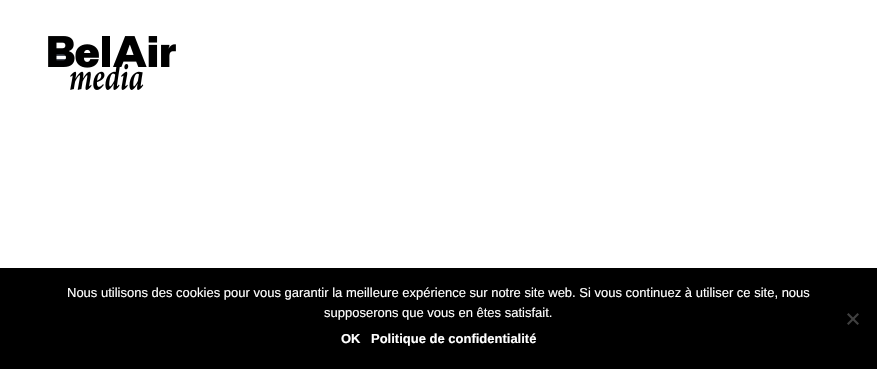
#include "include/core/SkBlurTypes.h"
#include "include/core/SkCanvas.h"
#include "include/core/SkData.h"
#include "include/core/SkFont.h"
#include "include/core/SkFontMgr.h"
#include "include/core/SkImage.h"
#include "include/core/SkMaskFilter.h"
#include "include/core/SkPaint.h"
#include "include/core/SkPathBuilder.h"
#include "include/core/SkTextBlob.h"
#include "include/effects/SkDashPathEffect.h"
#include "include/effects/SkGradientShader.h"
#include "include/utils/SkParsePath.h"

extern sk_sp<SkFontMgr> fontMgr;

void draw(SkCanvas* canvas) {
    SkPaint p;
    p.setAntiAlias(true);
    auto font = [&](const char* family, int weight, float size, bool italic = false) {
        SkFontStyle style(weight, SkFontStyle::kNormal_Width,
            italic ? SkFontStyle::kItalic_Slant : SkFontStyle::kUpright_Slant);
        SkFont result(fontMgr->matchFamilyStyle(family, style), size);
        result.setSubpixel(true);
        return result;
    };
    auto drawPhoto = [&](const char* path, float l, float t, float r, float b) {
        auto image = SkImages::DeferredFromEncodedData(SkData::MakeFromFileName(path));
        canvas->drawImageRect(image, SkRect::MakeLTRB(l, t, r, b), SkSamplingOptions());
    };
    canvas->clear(0xFFFFFFFF);
    p.setStyle(SkPaint::kStroke_Style);
    p.setStrokeWidth(1.5f);
    p.setStrokeCap(SkPaint::kRound_Cap);
    p.setStrokeJoin(SkPaint::kRound_Join);
    p.setColor(0xFF111827);
    canvas->drawPath(SkPathBuilder().moveTo(52, 55).lineTo(68, 55).moveTo(52, 60).lineTo(68, 60).moveTo(52, 65).lineTo(68, 65).detach(), p);
    drawPhoto("media/1.png", 48, 36, 176, 90);
    p.setStyle(SkPaint::kFill_Style);
    p.setColor(0xFF000000);
    canvas->drawRect(SkRect::MakeLTRB(0, 268, 877, 369), p);
    auto font1 = font("Liberation Sans", 400, 13);
    p.setColor(0xFFFFFFFF);
    canvas->drawString("Nous utilisons des cookies pour vous garantir la meilleure expérience sur notre site web. Si vous continuez à utiliser ce site, nous", 67, 297, font1, p);
    canvas->drawString("supposerons que vous en êtes satisfait.", 324, 317, font1, p);
    p.setColor(0xFF404040);
    canvas->drawPath(SkPathBuilder().moveTo(857.5f, 313).lineTo(859, 314.5f).lineTo(848.5f, 325).lineTo(847, 323.5f).close().detach(), p);
    canvas->drawPath(SkPathBuilder().moveTo(847, 314.5f).lineTo(848.5f, 313).lineTo(859, 323.5f).lineTo(857.5f, 325).close().detach(), p);
    auto font2 = font("Liberation Sans", 700, 13);
    p.setColor(0xFFFFFFFF);
    canvas->drawString("OK", 341, 343, font2, p);
    canvas->drawString("Politique de confidentialité", 371, 343, font2, p);
}
